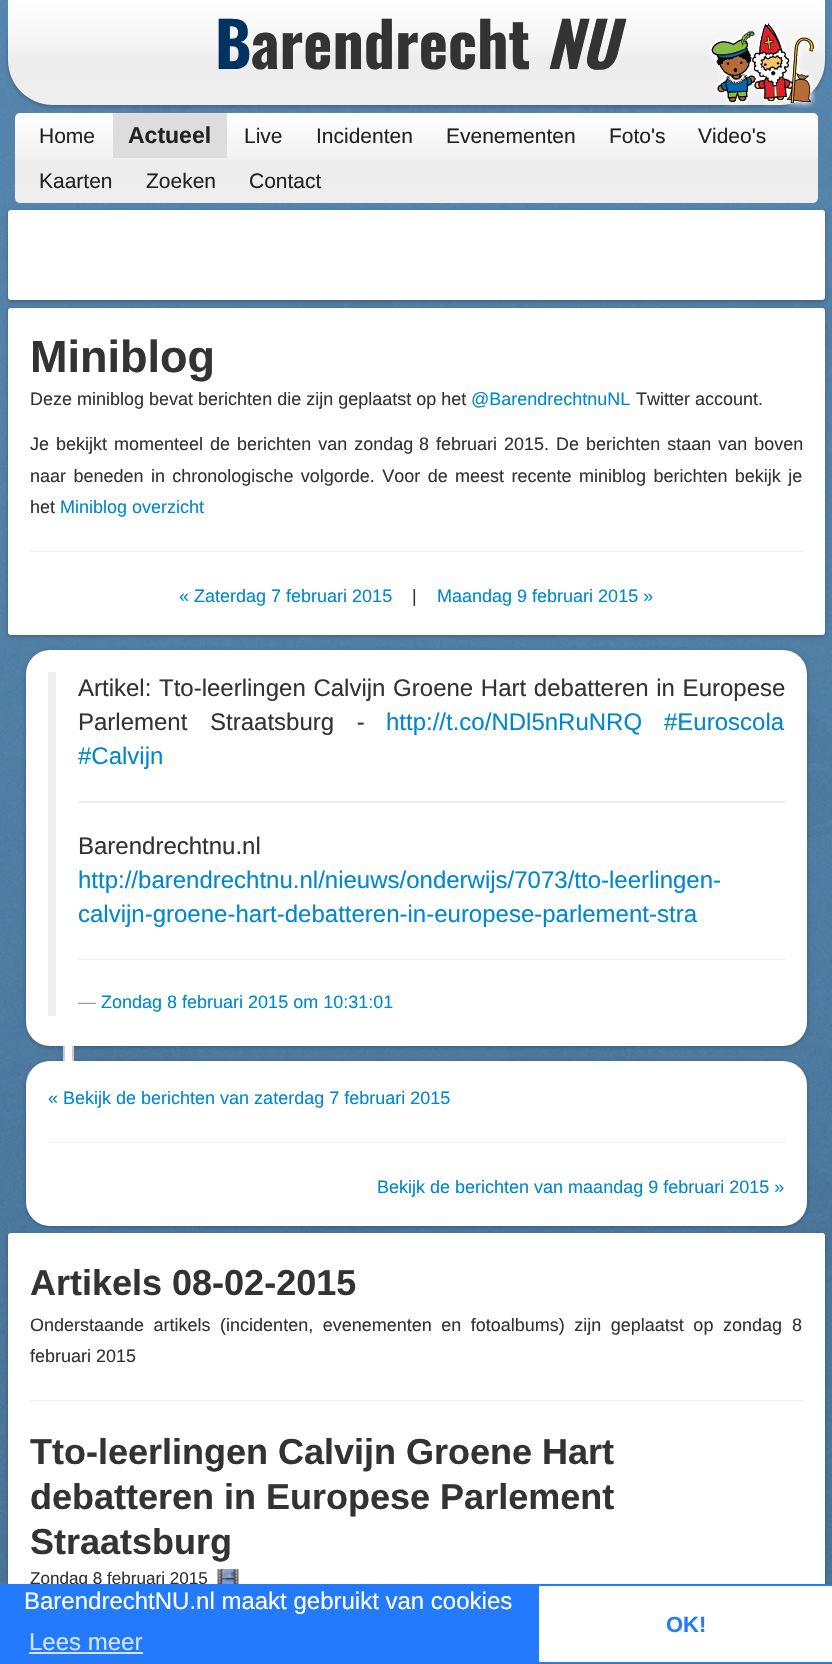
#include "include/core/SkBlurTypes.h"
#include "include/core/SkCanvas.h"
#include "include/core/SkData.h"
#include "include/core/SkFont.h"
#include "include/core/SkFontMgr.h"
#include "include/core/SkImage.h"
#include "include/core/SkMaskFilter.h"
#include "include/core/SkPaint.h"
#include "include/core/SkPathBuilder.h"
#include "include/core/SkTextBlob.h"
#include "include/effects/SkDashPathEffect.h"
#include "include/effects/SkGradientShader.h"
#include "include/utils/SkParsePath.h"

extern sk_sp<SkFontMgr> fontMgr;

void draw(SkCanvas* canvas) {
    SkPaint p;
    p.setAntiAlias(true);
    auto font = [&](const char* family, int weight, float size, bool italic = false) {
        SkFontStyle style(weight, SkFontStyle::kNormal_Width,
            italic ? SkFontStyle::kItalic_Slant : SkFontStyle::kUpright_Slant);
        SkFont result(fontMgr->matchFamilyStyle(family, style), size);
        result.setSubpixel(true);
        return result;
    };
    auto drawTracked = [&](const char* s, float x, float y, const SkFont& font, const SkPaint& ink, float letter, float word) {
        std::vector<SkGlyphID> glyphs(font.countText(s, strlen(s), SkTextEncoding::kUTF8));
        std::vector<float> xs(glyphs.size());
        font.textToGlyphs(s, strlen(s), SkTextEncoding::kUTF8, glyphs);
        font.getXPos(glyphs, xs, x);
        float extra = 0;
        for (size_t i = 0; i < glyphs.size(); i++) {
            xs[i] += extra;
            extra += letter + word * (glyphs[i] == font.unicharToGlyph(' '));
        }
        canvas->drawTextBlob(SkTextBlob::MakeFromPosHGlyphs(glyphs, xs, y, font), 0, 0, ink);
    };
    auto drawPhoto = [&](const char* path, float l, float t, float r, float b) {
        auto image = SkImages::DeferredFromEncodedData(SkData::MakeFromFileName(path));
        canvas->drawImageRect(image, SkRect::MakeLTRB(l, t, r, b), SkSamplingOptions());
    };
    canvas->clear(0xFFFFFFFF);
    drawPhoto("media/1.png", 0, 0, 832, 1584);
    {
        const SkColor colors[] = {0xFFFFFFFF, 0xFFF3F3F3, 0xFFEDEDED, 0xFFEEEEEE};
        const float stops[] = {0, 0.46f, 0.55f, 1};
        const SkPoint ends[] = {{416, 112}, {416, 203}};
        p.setShader(SkGradientShader::MakeLinear(ends, colors, stops, 4, SkTileMode::kClamp));
        p.setAlpha(255);
    }
    canvas->drawRoundRect(SkRect::MakeLTRB(15, 113, 818, 203), 5, 5, p);
    p.setShader(nullptr);
    p.setColor(0xFFDDDDDD);
    canvas->drawRect(SkRect::MakeLTRB(113, 113, 227, 158), p);
    p.setColor(0x40000000);
    p.setMaskFilter(SkMaskFilter::MakeBlur(kNormal_SkBlurStyle, 2));
    canvas->drawRoundRect(SkRect::MakeLTRB(8, 2, 825, 107), 45, 45, p);
    p.setMaskFilter(nullptr);
    {
        const SkColor colors[] = {0xFFFFFFFF, 0xFFF3F3F3, 0xFFEDEDED, 0xFFEEEEEE};
        const float stops[] = {0, 0.46f, 0.55f, 1};
        const SkPoint ends[] = {{416, 0}, {416, 105}};
        p.setShader(SkGradientShader::MakeLinear(ends, colors, stops, 4, SkTileMode::kClamp));
        p.setAlpha(255);
    }
    canvas->drawPath(SkPathBuilder().moveTo(8, 0).lineTo(825, 0).lineTo(825, 60).cubicTo(825, 85, 805, 105, 780, 105).lineTo(53, 105).cubicTo(28, 105, 8, 85, 8, 60).close().detach(), p);
    auto font1 = font("Oswald", 700, 62);
    p.setShader(nullptr);
    p.setColor(0xFF003362);
    canvas->drawString("B", 215, 69, font1, p);
    p.setColor(0xFF333333);
    canvas->drawString("arendrecht", 251, 69, font1, p);
    auto font2 = font("Oswald", 700, 62, true);
    canvas->drawString("NU", 546, 69, font2, p);
    drawPhoto("media/2.png", 709, 23, 817, 108);
    auto font3 = font("Liberation Sans", 400, 21);
    p.setColor(0xFF222222);
    canvas->drawString("Home", 39, 143, font3, p);
    auto font4 = font("Liberation Sans", 700, 23);
    canvas->drawString("Actueel", 128, 143, font4, p);
    {
        const struct { const char* s; float x, y; } items[] = {
            {"Live", 244, 143},
            {"Incidenten", 316, 143},
            {"Evenementen", 446, 143},
            {"Foto's", 609, 143},
            {"Video's", 698, 143},
            {"Kaarten", 39, 188},
            {"Zoeken", 146, 188},
            {"Contact", 249, 188},
        };
        for (auto [s, x, y] : items) {
            canvas->drawString(s, x, y, font3, p);
        }
    }
    p.setColor(0x40000000);
    p.setMaskFilter(SkMaskFilter::MakeBlur(kNormal_SkBlurStyle, 2));
    canvas->drawRoundRect(SkRect::MakeLTRB(8, 309, 825, 636), 3, 3, p);
    p.setMaskFilter(nullptr);
    p.setColor(0xFFFFFFFF);
    canvas->drawRoundRect(SkRect::MakeLTRB(8, 308, 825, 635), 3, 3, p);
    p.setColor(0x40000000);
    p.setMaskFilter(SkMaskFilter::MakeBlur(kNormal_SkBlurStyle, 2));
    canvas->drawRoundRect(SkRect::MakeLTRB(8, 212, 825, 302), 3, 3, p);
    p.setMaskFilter(nullptr);
    p.setColor(0xFFFFFFFF);
    canvas->drawRoundRect(SkRect::MakeLTRB(8, 210, 825, 300), 3, 3, p);
    auto font5 = font("Liberation Sans", 700, 45);
    p.setColor(0xFF333333);
    canvas->drawString("Miniblog", 30, 372, font5, p);
    auto font6 = font("Liberation Sans", 400, 18);
    canvas->drawString("Deze miniblog bevat berichten die zijn geplaatst op het", 30, 405, font6, p);
    p.setColor(0xFF0088CC);
    canvas->drawString("@BarendrechtnuNL", 471, 405, font6, p);
    p.setColor(0xFF333333);
    canvas->drawString("Twitter account.", 636, 405, font6, p);
    drawTracked("Je bekijkt momenteel de berichten van zondag", 30, 450, font6, p, 0, 2);
    drawTracked("8 februari 2015. De berichten staan van boven", 419, 450, font6, p, 0, 2);
    drawTracked("naar beneden in chronologische volgorde. Voor de meest recente miniblog berichten bekijk je", 30, 482, font6, p, 0, 2.4f);
    canvas->drawString("het", 30, 513, font6, p);
    p.setColor(0xFF0088CC);
    canvas->drawString("Miniblog overzicht", 60, 513, font6, p);
    p.setColor(0xFFEEEEEE);
    canvas->drawRect(SkRect::MakeLTRB(30, 551, 803, 552), p);
    p.setColor(0xFF0088CC);
    canvas->drawString("« Zaterdag 7 februari 2015", 179, 602, font6, p);
    p.setColor(0xFF333333);
    canvas->drawString("|", 412, 602, font6, p);
    p.setColor(0xFF0088CC);
    canvas->drawString("Maandag 9 februari 2015 »", 437, 602, font6, p);
    p.setColor(0x40000000);
    p.setMaskFilter(SkMaskFilter::MakeBlur(kNormal_SkBlurStyle, 2));
    canvas->drawRoundRect(SkRect::MakeLTRB(26, 651, 807, 1047), 24, 24, p);
    p.setMaskFilter(nullptr);
    p.setColor(0xFFFFFFFF);
    canvas->drawRoundRect(SkRect::MakeLTRB(26, 650, 807, 1046), 24, 24, p);
    p.setColor(0xFFEEEEEE);
    canvas->drawRect(SkRect::MakeLTRB(48, 672, 56, 1016), p);
    auto font7 = font("Liberation Sans", 400, 24);
    p.setColor(0xFF333333);
    drawTracked("Artikel: Tto-leerlingen Calvijn Groene Hart debatteren in Europese", 78, 696, font7, p, 0, 1);
    drawTracked("Parlement Straatsburg -", 78, 730, font7, p, 0, 16);
    p.setColor(0xFF0088CC);
    {
        const struct { const char* s; float x, y; } items[] = {
            {"http://t.co/NDl5nRuNRQ", 386, 730},
            {"#Euroscola", 664, 730},
            {"#Calvijn", 78, 764},
        };
        for (auto [s, x, y] : items) {
            canvas->drawString(s, x, y, font7, p);
        }
    }
    p.setColor(0xFFEEEEEE);
    canvas->drawRect(SkRect::MakeLTRB(78, 801, 785, 803), p);
    p.setColor(0xFF333333);
    canvas->drawString("Barendrechtnu.nl", 78, 854, font7, p);
    p.setColor(0xFF0088CC);
    canvas->drawString("http://barendrechtnu.nl/nieuws/onderwijs/7073/tto-leerlingen-", 78, 888, font7, p);
    canvas->drawString("calvijn-groene-hart-debatteren-in-europese-parlement-stra", 78, 922, font7, p);
    p.setColor(0xFFEEEEEE);
    canvas->drawRect(SkRect::MakeLTRB(78, 959, 785, 960), p);
    p.setColor(0xFF999999);
    canvas->drawString("—", 78, 1008, font6, p);
    p.setColor(0xFF0088CC);
    canvas->drawString("Zondag 8 februari 2015 om 10:31:01", 101, 1008, font6, p);
    p.setColor(0x40000000);
    p.setMaskFilter(SkMaskFilter::MakeBlur(kNormal_SkBlurStyle, 2));
    canvas->drawRoundRect(SkRect::MakeLTRB(26, 1062, 807, 1227), 24, 24, p);
    p.setMaskFilter(nullptr);
    {
        const struct { float l, t, r, b; SkColor color; } items[] = {
            {65, 1046, 72, 1061, 0xFFFFFFFF},
            {72, 1046, 74, 1061, 0xFFCCCCCC},
            {63, 1046, 65, 1061, 0xFFCCCCCC},
        };
        for (auto [l, t, r, b, color] : items) {
            p.setColor(color);
            canvas->drawRect(SkRect::MakeLTRB(l, t, r, b), p);
        }
    }
    p.setColor(0xFFFFFFFF);
    canvas->drawRoundRect(SkRect::MakeLTRB(26, 1061, 807, 1226), 24, 24, p);
    p.setColor(0xFF0088CC);
    canvas->drawString("« Bekijk de berichten van zaterdag 7 februari 2015", 48, 1104, font6, p);
    p.setColor(0xFFEEEEEE);
    canvas->drawRect(SkRect::MakeLTRB(48, 1142, 785, 1143), p);
    p.setColor(0xFF0088CC);
    canvas->drawString("Bekijk de berichten van maandag 9 februari 2015 »", 377, 1193, font6, p);
    p.setColor(0x40000000);
    p.setMaskFilter(SkMaskFilter::MakeBlur(kNormal_SkBlurStyle, 2));
    canvas->drawRoundRect(SkRect::MakeLTRB(8, 1235, 825, 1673), 3, 3, p);
    p.setMaskFilter(nullptr);
    p.setColor(0xFFFFFFFF);
    canvas->drawRoundRect(SkRect::MakeLTRB(8, 1233, 825, 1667), 3, 3, p);
    auto font8 = font("Liberation Sans", 700, 36);
    p.setColor(0xFF333333);
    canvas->drawString("Artikels 08-02-2015", 30, 1295, font8, p);
    drawTracked("Onderstaande artikels (incidenten, evenementen en fotoalbums) zijn geplaatst op zondag", 30, 1331, font6, p, 0, 4.5f);
    canvas->drawString("8", 792, 1331, font6, p);
    canvas->drawString("februari 2015", 30, 1362, font6, p);
    p.setColor(0xFFEEEEEE);
    canvas->drawRect(SkRect::MakeLTRB(30, 1400, 803, 1401), p);
    p.setColor(0xFF333333);
    {
        const struct { const char* s; float x, y; } items[] = {
            {"Tto-leerlingen Calvijn Groene Hart", 30, 1464},
            {"debatteren in Europese Parlement", 30, 1509},
            {"Straatsburg", 30, 1554},
        };
        for (auto [s, x, y] : items) {
            canvas->drawString(s, x, y, font8, p);
        }
    }
    auto font9 = font("Liberation Sans", 400, 17.1f);
    canvas->drawString("Zondag 8 februari 2015", 30, 1584, font9, p);
    drawPhoto("media/3.png", 217, 1569, 239, 1584);
    p.setColor(0xFF237AFC);
    canvas->drawRect(SkRect::MakeLTRB(0, 1584, 832, 1664), p);
    p.setColor(0xFFFFFFFF);
    canvas->drawString("BarendrechtNU.nl maakt gebruikt van cookies", 24, 1609, font7, p);
    p.setColor(0xFFD3E4FE);
    canvas->drawString("Lees meer", 29, 1650, font7, p);
    canvas->drawRect(SkRect::MakeLTRB(29, 1652, 143, 1654), p);
    p.setColor(0xFFFFFFFF);
    canvas->drawRect(SkRect::MakeLTRB(539, 1586, 832, 1662), p);
    auto font10 = font("Liberation Sans", 700, 22);
    p.setColor(0xFF237AFC);
    canvas->drawString("OK!", 666, 1632, font10, p);
}
